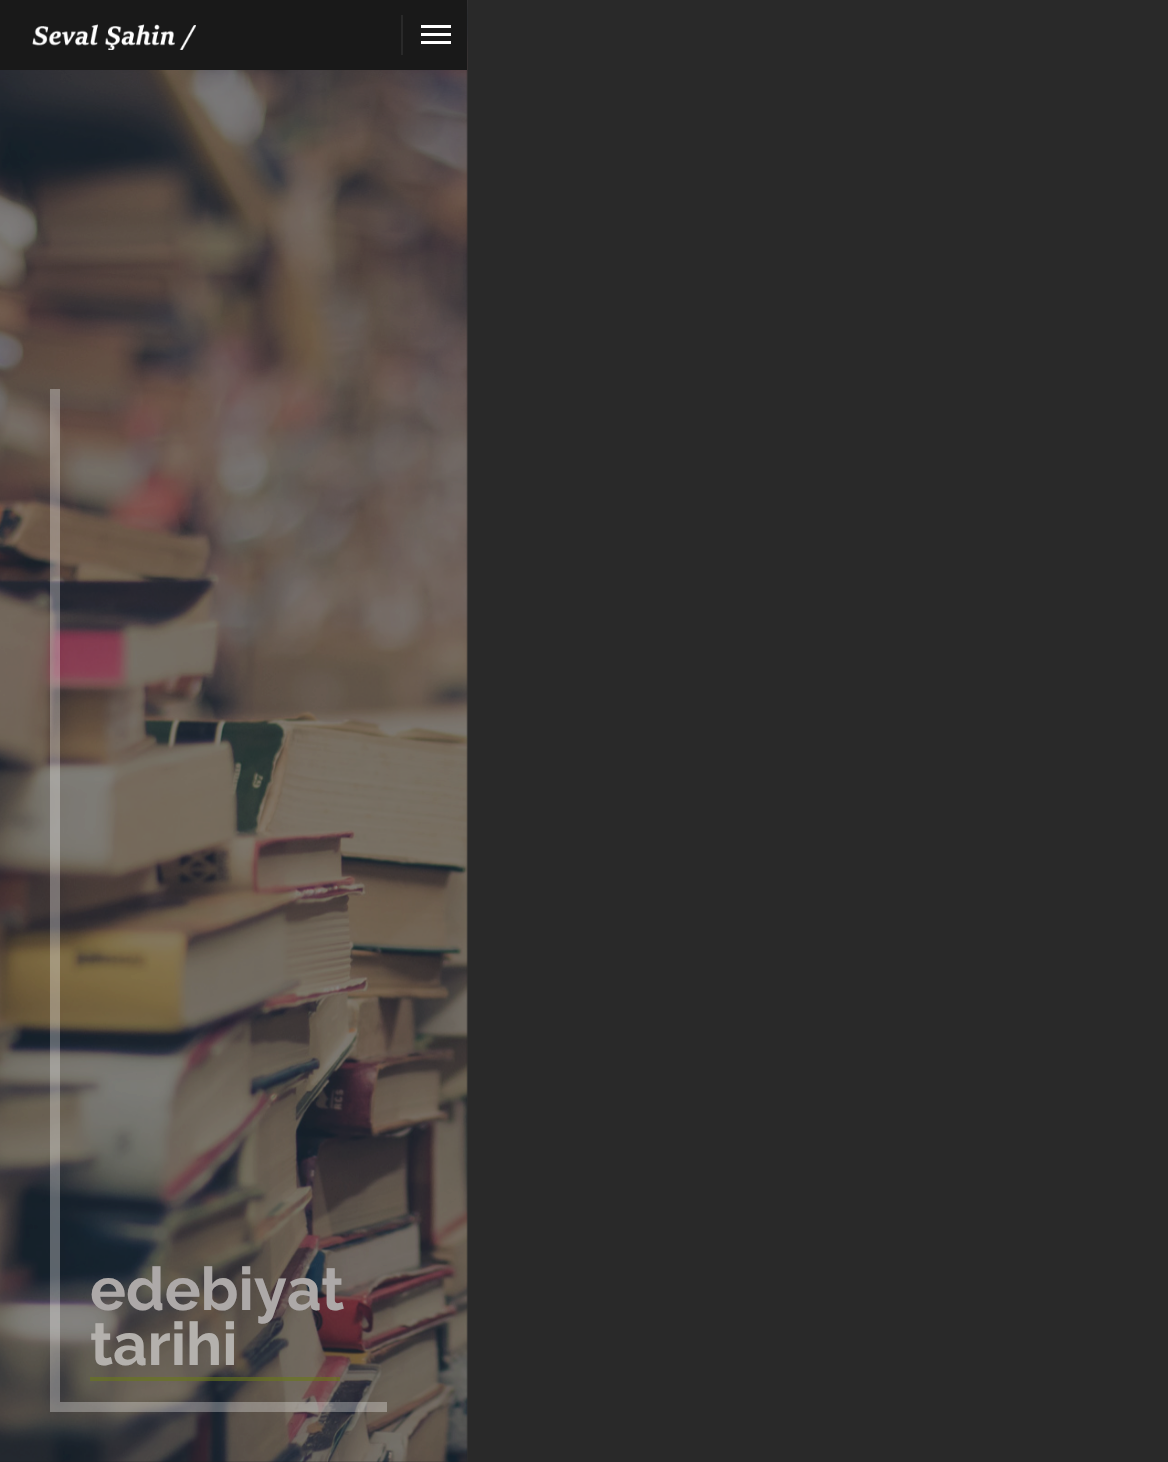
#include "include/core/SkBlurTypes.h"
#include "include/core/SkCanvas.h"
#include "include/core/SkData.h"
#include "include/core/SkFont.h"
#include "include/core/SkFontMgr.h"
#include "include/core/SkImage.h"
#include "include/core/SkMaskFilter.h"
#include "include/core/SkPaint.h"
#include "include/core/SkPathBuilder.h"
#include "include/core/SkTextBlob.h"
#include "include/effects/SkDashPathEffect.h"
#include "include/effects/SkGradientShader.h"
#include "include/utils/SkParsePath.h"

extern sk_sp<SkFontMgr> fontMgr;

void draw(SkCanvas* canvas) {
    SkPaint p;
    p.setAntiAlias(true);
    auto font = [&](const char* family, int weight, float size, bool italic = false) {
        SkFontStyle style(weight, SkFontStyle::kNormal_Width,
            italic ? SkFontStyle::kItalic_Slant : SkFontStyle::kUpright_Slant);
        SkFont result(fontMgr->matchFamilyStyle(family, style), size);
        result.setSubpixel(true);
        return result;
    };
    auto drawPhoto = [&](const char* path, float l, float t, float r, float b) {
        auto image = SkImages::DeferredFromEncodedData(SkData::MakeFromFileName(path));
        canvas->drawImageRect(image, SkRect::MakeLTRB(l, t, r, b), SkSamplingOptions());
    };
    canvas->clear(0xFF292929);
    p.setColor(0xFF222222);
    canvas->drawRect(SkRect::MakeLTRB(0, 70, 467, 1462), p);
    drawPhoto("media/2.png", 0, 0, 468, 1462);
    p.setColor(0xFF191919);
    canvas->drawRect(SkRect::MakeLTRB(0, 0, 467, 70), p);
    drawPhoto("media/1.png", 32, 24, 196, 50);
    {
        const struct { float l, t, r, b; SkColor color; } items[] = {
            {401, 15, 403, 55, 0xFF292929},
            {421, 25, 451, 28, 0xFFFFFFFF},
            {421, 33, 451, 36, 0xFFFFFFFF},
            {421, 41, 451, 44, 0xFFFFFFFF},
            {50, 389, 60, 1412, 0x4DFFFFFF},
        };
        for (auto [l, t, r, b, color] : items) {
            p.setColor(color);
            canvas->drawRect(SkRect::MakeLTRB(l, t, r, b), p);
        }
    }
    auto font1 = font("Raleway", 700, 60);
    p.setColor(0xFFADA9A8);
    canvas->drawString("edebiyat", 90, 1310, font1, p);
    p.setColor(0xFFB4B1AD);
    canvas->drawString("tarihi", 90, 1365, font1, p);
    p.setColor(0x94697814);
    canvas->drawRect(SkRect::MakeLTRB(90, 1377, 340, 1381), p);
    p.setColor(0x4DFFFFFF);
    canvas->drawRect(SkRect::MakeLTRB(60, 1402, 387, 1412), p);
}
